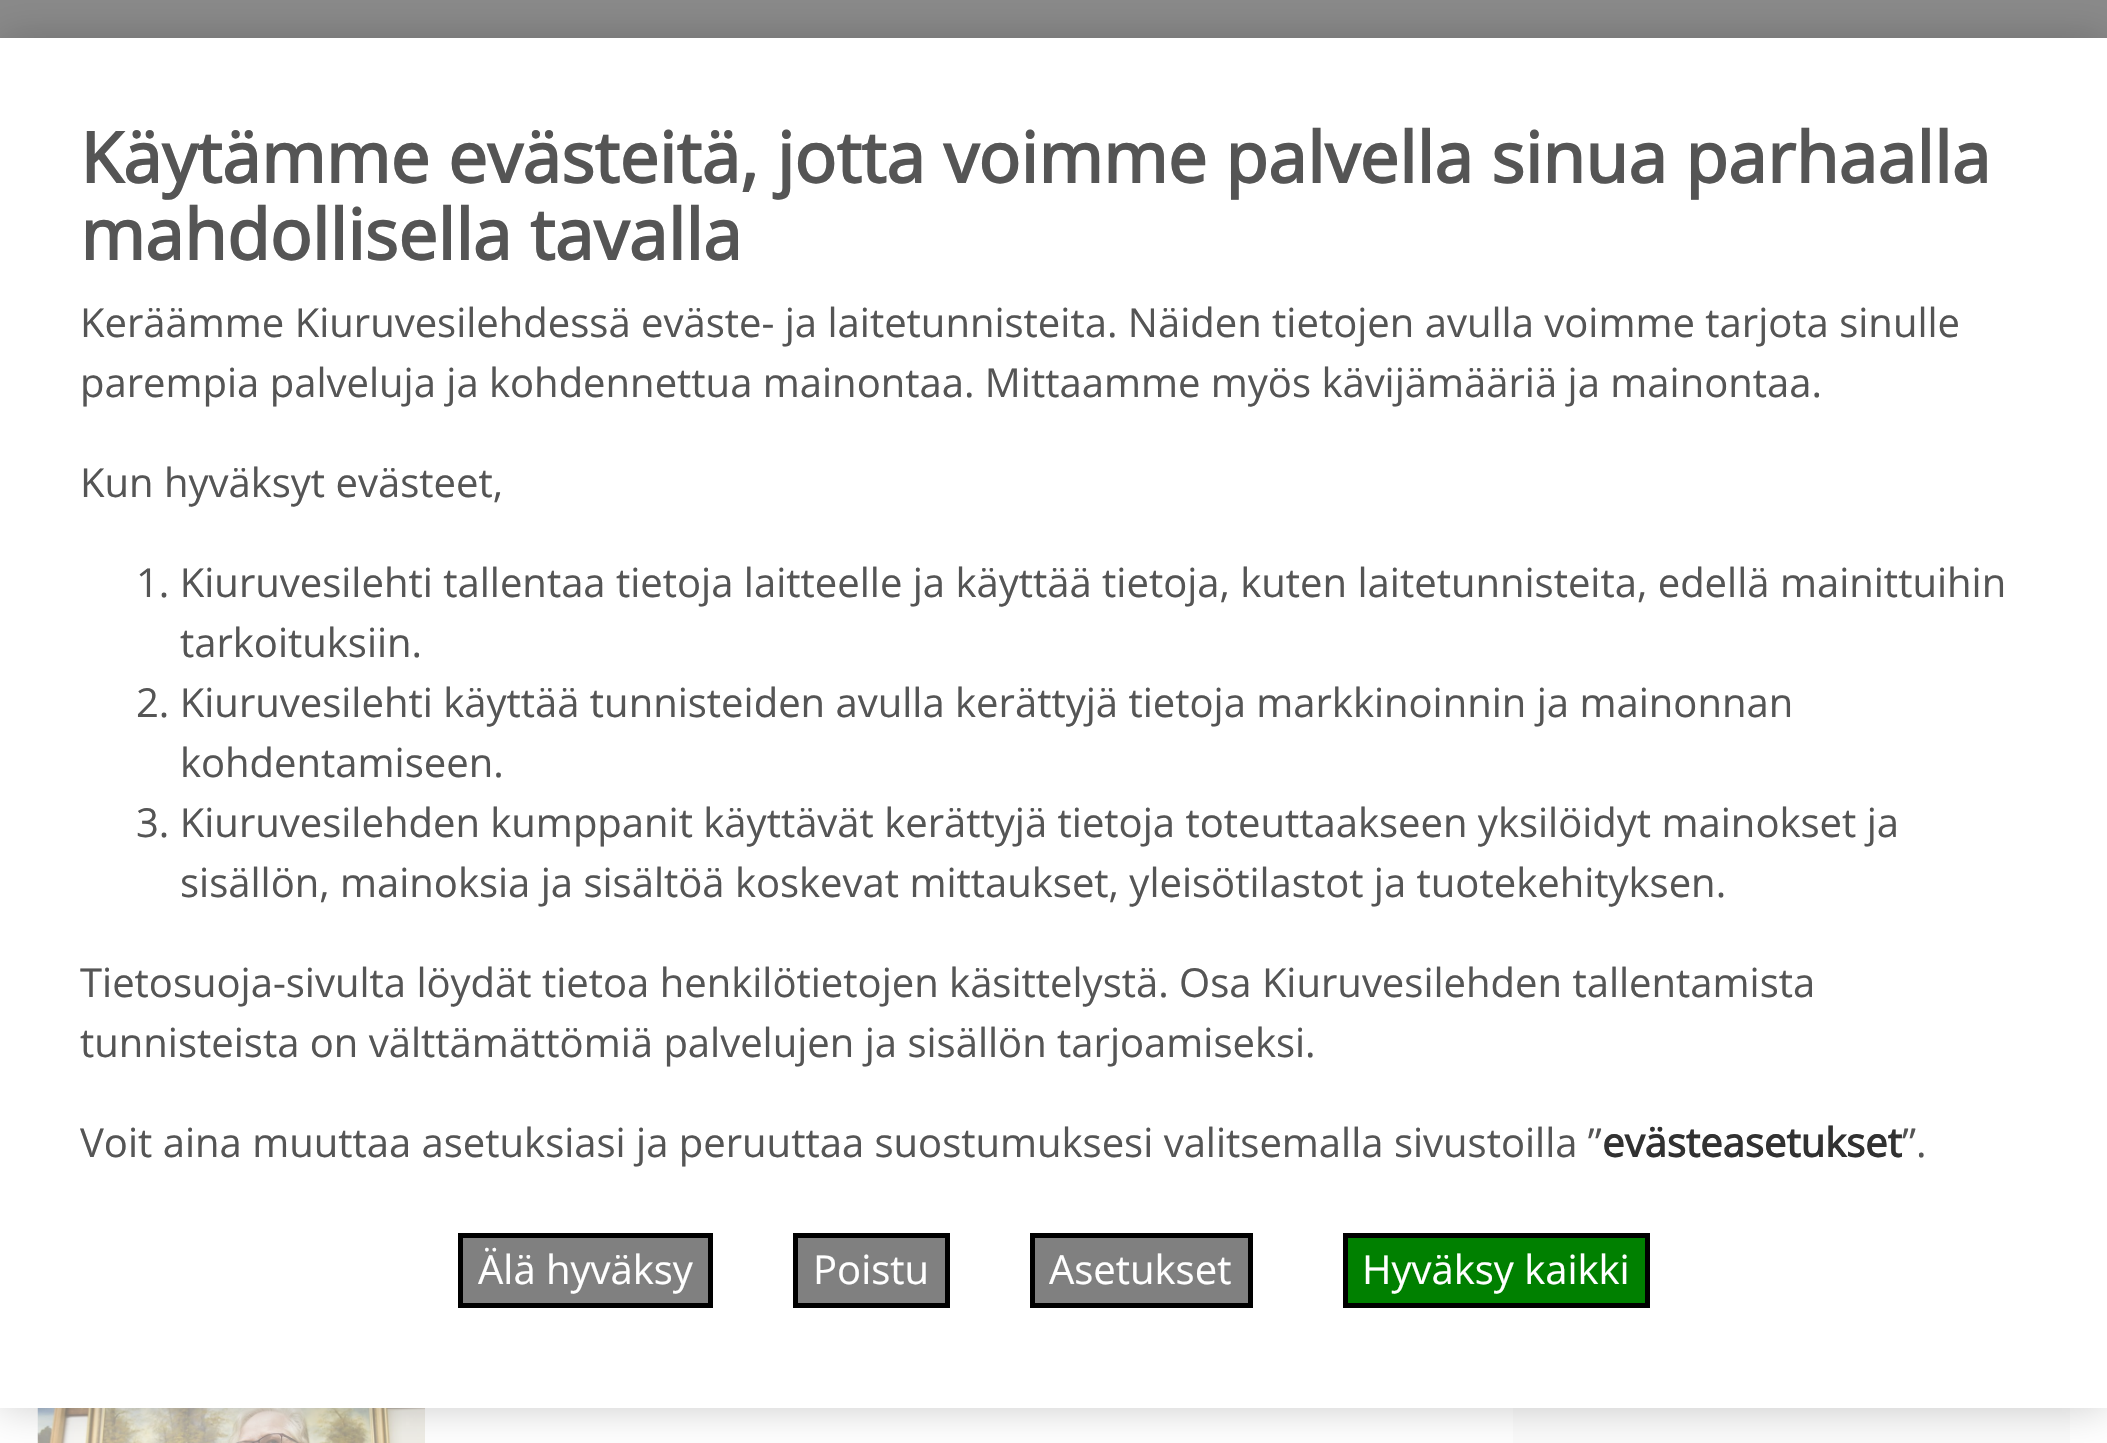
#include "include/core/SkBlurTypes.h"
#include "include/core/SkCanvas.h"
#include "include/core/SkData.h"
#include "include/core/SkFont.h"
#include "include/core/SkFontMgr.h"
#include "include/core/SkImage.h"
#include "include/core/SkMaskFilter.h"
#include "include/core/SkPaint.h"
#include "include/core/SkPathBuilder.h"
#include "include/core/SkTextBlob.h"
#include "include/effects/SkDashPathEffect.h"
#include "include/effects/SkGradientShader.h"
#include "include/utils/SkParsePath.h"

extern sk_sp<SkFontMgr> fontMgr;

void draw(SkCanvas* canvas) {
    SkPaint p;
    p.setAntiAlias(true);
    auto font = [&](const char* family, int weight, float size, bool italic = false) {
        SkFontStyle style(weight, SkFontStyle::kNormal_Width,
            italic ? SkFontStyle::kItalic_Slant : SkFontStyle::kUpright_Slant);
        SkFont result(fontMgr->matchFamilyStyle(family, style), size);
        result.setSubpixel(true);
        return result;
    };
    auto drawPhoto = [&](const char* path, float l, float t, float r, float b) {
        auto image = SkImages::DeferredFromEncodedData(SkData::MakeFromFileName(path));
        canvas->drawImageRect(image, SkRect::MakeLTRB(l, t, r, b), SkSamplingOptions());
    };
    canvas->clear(0xFFFFFFFF);
    p.setColor(0xFF8A8A8A);
    canvas->drawRect(SkRect::MakeLTRB(0, 0, 2107, 38), p);
    drawPhoto("media/1.png", 37, 1408, 425, 1443);
    p.setColor(0xFFFBFBFB);
    canvas->drawRect(SkRect::MakeLTRB(1513, 1408, 2070, 1443), p);
    p.setColor(0x33000000);
    p.setMaskFilter(SkMaskFilter::MakeBlur(kNormal_SkBlurStyle, 20));
    canvas->drawRect(SkRect::MakeLTRB(0, 38, 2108, 1408), p);
    p.setMaskFilter(nullptr);
    p.setColor(0xFFFFFFFF);
    canvas->drawRect(SkRect::MakeLTRB(0, 38, 2107, 1408), p);
    auto font1 = font("Open Sans", 700, 70);
    p.setColor(0xFF555555);
    canvas->drawString("Käytämme evästeitä, jotta voimme palvella sinua parhaalla", 80, 183, font1, p);
    canvas->drawString("mahdollisella tavalla", 80, 260, font1, p);
    auto font2 = font("Open Sans", 400, 40);
    {
        const struct { const char* s; float x, y; } items[] = {
            {"Keräämme Kiuruvesilehdessä eväste- ja laitetunnisteita. Näiden tietojen avulla voimme tarjota sinulle", 80, 337},
            {"parempia palveluja ja kohdennettua mainontaa. Mittaamme myös kävijämääriä ja mainontaa.", 80, 397},
            {"Kun hyväksyt evästeet,", 80, 497},
            {"1. Kiuruvesilehti tallentaa tietoja laitteelle ja käyttää tietoja, kuten laitetunnisteita, edellä mainittuihin", 136, 597},
            {"tarkoituksiin.", 180, 657},
            {"2. Kiuruvesilehti käyttää tunnisteiden avulla kerättyjä tietoja markkinoinnin ja mainonnan", 136, 717},
            {"kohdentamiseen.", 180, 777},
            {"3. Kiuruvesilehden kumppanit käyttävät kerättyjä tietoja toteuttaakseen yksilöidyt mainokset ja", 136, 837},
            {"sisällön, mainoksia ja sisältöä koskevat mittaukset, yleisötilastot ja tuotekehityksen.", 180, 897},
            {"Tietosuoja-sivulta löydät tietoa henkilötietojen käsittelystä. Osa Kiuruvesilehden tallentamista", 80, 997},
            {"tunnisteista on välttämättömiä palvelujen ja sisällön tarjoamiseksi.", 80, 1057},
            {"Voit aina muuttaa asetuksiasi ja peruuttaa suostumuksesi valitsemalla sivustoilla ”", 80, 1157},
        };
        for (auto [s, x, y] : items) {
            canvas->drawString(s, x, y, font2, p);
        }
    }
    auto font3 = font("Open Sans", 700, 40);
    p.setColor(0xFF313131);
    canvas->drawString("evästeasetukset", 1602, 1157, font3, p);
    p.setColor(0xFF555555);
    canvas->drawString("”.", 1902, 1157, font2, p);
    p.setColor(0xFF808080);
    canvas->drawRect(SkRect::MakeLTRB(460.5f, 1235.5f, 710.5f, 1305.5f), p);
    p.setStyle(SkPaint::kStroke_Style);
    p.setStrokeWidth(5);
    p.setColor(0xFF000000);
    canvas->drawRect(SkRect::MakeLTRB(460.5f, 1235.5f, 710.5f, 1305.5f), p);
    p.setStyle(SkPaint::kFill_Style);
    p.setColor(0xFFFFFFFF);
    canvas->drawString("Älä hyväksy", 478, 1284, font2, p);
    p.setColor(0xFF808080);
    canvas->drawRect(SkRect::MakeLTRB(795.5f, 1235.5f, 947.5f, 1305.5f), p);
    p.setStyle(SkPaint::kStroke_Style);
    p.setColor(0xFF000000);
    canvas->drawRect(SkRect::MakeLTRB(795.5f, 1235.5f, 947.5f, 1305.5f), p);
    p.setStyle(SkPaint::kFill_Style);
    p.setColor(0xFFFFFFFF);
    canvas->drawString("Poistu", 813, 1284, font2, p);
    p.setColor(0xFF808080);
    canvas->drawRect(SkRect::MakeLTRB(1032.5f, 1235.5f, 1250.5f, 1305.5f), p);
    p.setStyle(SkPaint::kStroke_Style);
    p.setColor(0xFF000000);
    canvas->drawRect(SkRect::MakeLTRB(1032.5f, 1235.5f, 1250.5f, 1305.5f), p);
    p.setStyle(SkPaint::kFill_Style);
    p.setColor(0xFFFFFFFF);
    canvas->drawString("Asetukset", 1049, 1284, font2, p);
    p.setColor(0xFF008000);
    canvas->drawRect(SkRect::MakeLTRB(1345.5f, 1235.5f, 1647.5f, 1305.5f), p);
    p.setStyle(SkPaint::kStroke_Style);
    p.setColor(0xFF000000);
    canvas->drawRect(SkRect::MakeLTRB(1345.5f, 1235.5f, 1647.5f, 1305.5f), p);
    p.setStyle(SkPaint::kFill_Style);
    p.setColor(0xFFFFFFFF);
    canvas->drawString("Hyväksy kaikki", 1362, 1284, font2, p);
}
